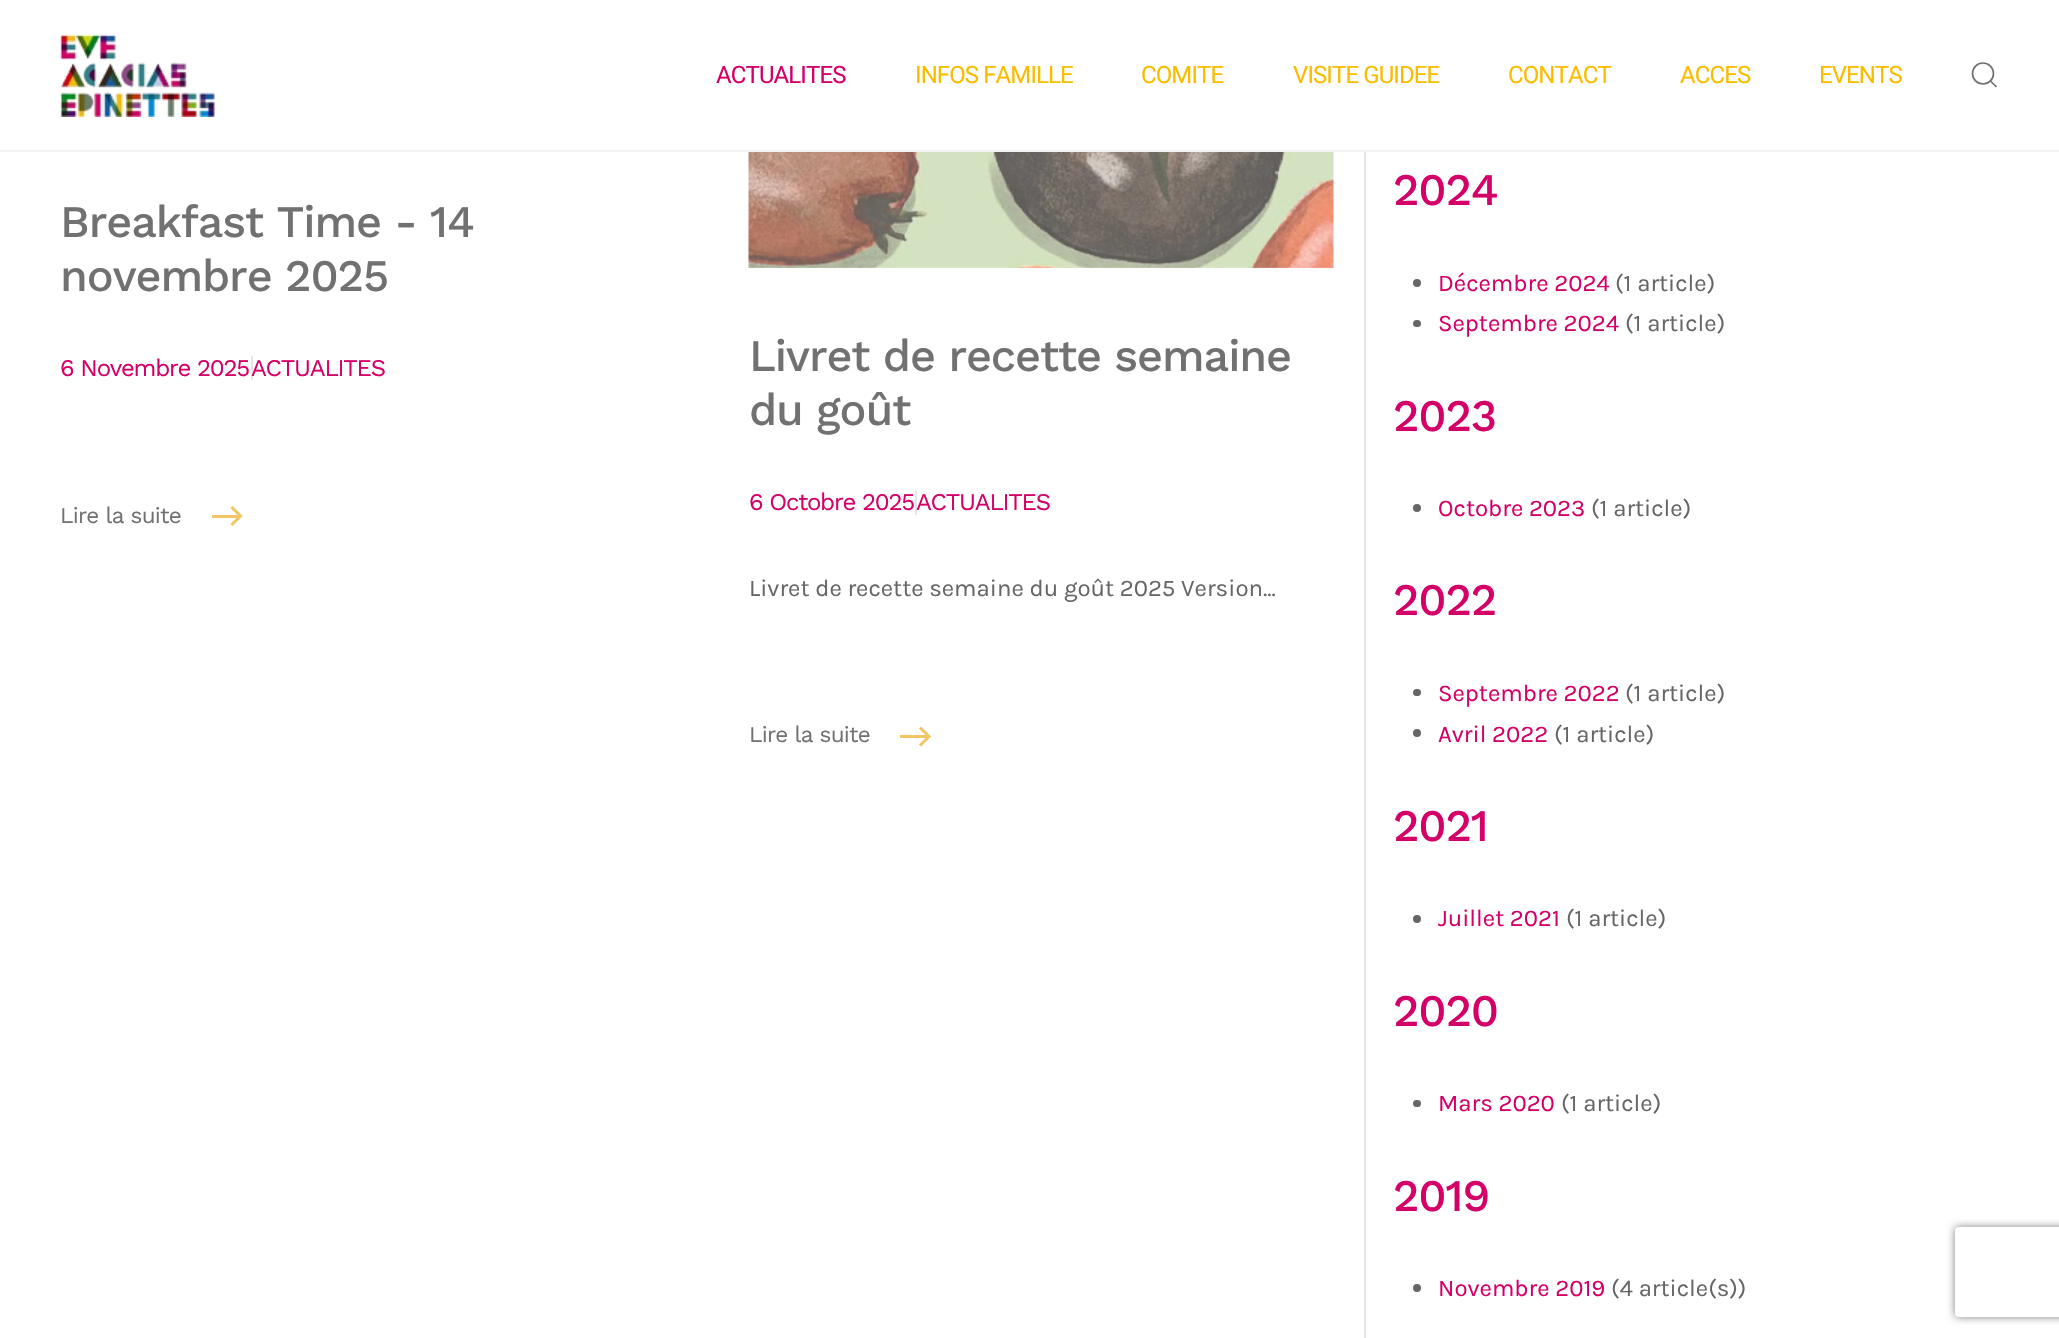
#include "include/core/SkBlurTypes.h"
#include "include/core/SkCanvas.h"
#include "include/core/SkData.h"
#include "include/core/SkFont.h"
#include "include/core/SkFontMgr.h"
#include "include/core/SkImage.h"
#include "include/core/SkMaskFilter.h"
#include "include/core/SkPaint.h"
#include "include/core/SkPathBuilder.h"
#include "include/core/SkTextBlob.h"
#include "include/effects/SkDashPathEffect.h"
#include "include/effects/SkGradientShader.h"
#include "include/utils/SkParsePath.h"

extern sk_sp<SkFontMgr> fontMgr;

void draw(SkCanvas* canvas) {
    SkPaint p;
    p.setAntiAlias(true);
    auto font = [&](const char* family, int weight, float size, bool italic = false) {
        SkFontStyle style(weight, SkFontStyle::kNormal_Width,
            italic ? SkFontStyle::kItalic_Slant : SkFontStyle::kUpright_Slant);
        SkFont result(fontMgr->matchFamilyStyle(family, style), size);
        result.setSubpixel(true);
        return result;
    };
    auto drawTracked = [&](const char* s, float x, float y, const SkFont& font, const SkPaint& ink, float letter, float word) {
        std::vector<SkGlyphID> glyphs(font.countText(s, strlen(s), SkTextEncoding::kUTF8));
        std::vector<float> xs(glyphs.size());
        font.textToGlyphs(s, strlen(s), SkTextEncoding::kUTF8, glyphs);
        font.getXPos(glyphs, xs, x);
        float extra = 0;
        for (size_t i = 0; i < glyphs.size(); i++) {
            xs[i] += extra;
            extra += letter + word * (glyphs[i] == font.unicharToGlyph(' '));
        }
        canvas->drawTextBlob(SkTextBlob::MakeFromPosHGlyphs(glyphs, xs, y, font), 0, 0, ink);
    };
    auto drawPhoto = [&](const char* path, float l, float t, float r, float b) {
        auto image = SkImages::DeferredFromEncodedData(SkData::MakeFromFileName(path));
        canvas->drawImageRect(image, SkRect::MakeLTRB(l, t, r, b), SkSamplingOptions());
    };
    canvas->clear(0xFFFFFFFF);
    p.setColor(0xFFF4F4F4);
    canvas->drawRect(SkRect::MakeLTRB(0, 150, 2059, 152), p);
    drawPhoto("media/1.png", 60, 34, 215, 117);
    auto font1 = font("Roboto", 400, 24);
    p.setColor(0xFFD40067);
    drawTracked("ACTUALITES", 716, 83, font1, p, -0.9f, 0);
    p.setColor(0xFFF9BD00);
    {
        const struct { const char* s; float x, y; } items[] = {
            {"INFOS FAMILLE", 915, 83},
            {"COMITE", 1141, 83},
            {"VISITE GUIDEE", 1293, 83},
            {"CONTACT", 1508, 83},
            {"ACCES", 1680, 83},
            {"EVENTS", 1819, 83},
        };
        for (auto [s, x, y] : items) {
            drawTracked(s, x, y, font1, p, -0.9f, 0);
        }
    }
    p.setStyle(SkPaint::kStroke_Style);
    p.setStrokeWidth(1.7f);
    p.setColor(0xFF727171);
    canvas->drawCircle(1983, 73.5f, 10.5f, p);
    canvas->drawPath(SkPathBuilder().moveTo(1990.5f, 81).lineTo(1996.5f, 87).close().detach(), p);
    auto font2 = font("Work Sans", 500, 45);
    p.setStyle(SkPaint::kFill_Style);
    drawTracked("Breakfast Time - 14", 60, 237, font2, p, -1.1f, 0);
    drawTracked("novembre 2025", 60, 291, font2, p, -1.1f, 0);
    auto font3 = font("Work Sans", 400, 24);
    p.setColor(0xFFD40067);
    drawTracked("6 Novembre 2025", 60, 376, font3, p, -1.25f, 0);
    p.setColor(0xFFE5E5E5);
    canvas->drawRect(SkRect::MakeLTRB(251, 356, 253, 380), p);
    p.setColor(0xFFD40067);
    drawTracked("ACTUALITES", 251, 376, font3, p, -1.25f, 0);
    auto font4 = font("Work Sans", 400, 22.5f);
    p.setColor(0xFF727171);
    drawTracked("Lire la suite", 60, 523, font4, p, -0.75f, 0);
    p.setStyle(SkPaint::kStroke_Style);
    p.setStrokeWidth(3);
    p.setColor(0xFFF3C565);
    canvas->drawPath(SkPathBuilder().moveTo(231.5f, 507).lineTo(240.5f, 516).lineTo(231.5f, 525).detach(), p);
    p.setStyle(SkPaint::kFill_Style);
    canvas->drawRect(SkRect::MakeLTRB(212, 515, 238, 518), p);
    drawPhoto("media/2.png", 748, 152, 1334, 268);
    p.setColor(0xFF727171);
    drawTracked("Livret de recette semaine", 749, 371, font2, p, -1.1f, 0);
    drawTracked("du goût", 749, 425, font2, p, -1.1f, 0);
    p.setColor(0xFFD40067);
    drawTracked("6 Octobre 2025", 749, 510, font3, p, -1.25f, 0);
    p.setColor(0xFFE5E5E5);
    canvas->drawRect(SkRect::MakeLTRB(915, 491, 917, 515), p);
    p.setColor(0xFFD40067);
    drawTracked("ACTUALITES", 916, 510, font3, p, -1.25f, 0);
    auto font5 = font("Karla", 400, 24);
    p.setColor(0xFF666666);
    canvas->drawString("Livret de recette semaine du goût 2025 Version...", 749, 596, font5, p);
    p.setColor(0xFF727171);
    drawTracked("Lire la suite", 749, 742, font4, p, -0.75f, 0);
    p.setStyle(SkPaint::kStroke_Style);
    p.setColor(0xFFF3C565);
    canvas->drawPath(SkPathBuilder().moveTo(920, 727.5f).lineTo(929, 736.5f).lineTo(920, 745.5f).detach(), p);
    p.setStyle(SkPaint::kFill_Style);
    canvas->drawRect(SkRect::MakeLTRB(900, 735, 927, 738), p);
    p.setColor(0xFFE5E5E5);
    canvas->drawRect(SkRect::MakeLTRB(1364, 152, 1366, 1338), p);
    p.setColor(0xFFD40067);
    drawTracked("2024", 1393, 205, font2, p, -1.1f, 0);
    p.setColor(0xFF666666);
    canvas->drawCircle(1417, 283, 4, p);
    p.setColor(0xFFD40067);
    canvas->drawString("Décembre 2024", 1438, 291, font5, p);
    p.setColor(0xFF666666);
    canvas->drawString("(1 article)", 1615, 291, font5, p);
    canvas->drawRoundRect(SkRect::MakeLTRB(1413, 320, 1421, 327), 3.5f, 3.5f, p);
    p.setColor(0xFFD40067);
    canvas->drawString("Septembre 2024", 1438, 331, font5, p);
    p.setColor(0xFF666666);
    canvas->drawString("(1 article)", 1625, 331, font5, p);
    p.setColor(0xFFD40067);
    drawTracked("2023", 1393, 431, font2, p, -1.1f, 0);
    p.setColor(0xFF666666);
    canvas->drawCircle(1417, 508, 4, p);
    p.setColor(0xFFD40067);
    canvas->drawString("Octobre 2023", 1438, 516, font5, p);
    p.setColor(0xFF666666);
    canvas->drawString("(1 article)", 1591, 516, font5, p);
    p.setColor(0xFFD40067);
    drawTracked("2022", 1393, 615, font2, p, -1.1f, 0);
    p.setColor(0xFF666666);
    canvas->drawRoundRect(SkRect::MakeLTRB(1413, 689, 1421, 696), 3.5f, 3.5f, p);
    p.setColor(0xFFD40067);
    canvas->drawString("Septembre 2022", 1438, 701, font5, p);
    p.setColor(0xFF666666);
    canvas->drawString("(1 article)", 1625, 701, font5, p);
    canvas->drawCircle(1417, 733, 4, p);
    p.setColor(0xFFD40067);
    canvas->drawString("Avril 2022", 1438, 742, font5, p);
    p.setColor(0xFF666666);
    canvas->drawString("(1 article)", 1554, 742, font5, p);
    p.setColor(0xFFD40067);
    drawTracked("2021", 1393, 841, font2, p, -1.1f, 0);
    p.setColor(0xFF666666);
    canvas->drawCircle(1417, 919, 4, p);
    p.setColor(0xFFD40067);
    canvas->drawString("Juillet 2021", 1438, 926, font5, p);
    p.setColor(0xFF666666);
    canvas->drawString("(1 article)", 1566, 926, font5, p);
    p.setColor(0xFFD40067);
    drawTracked("2020", 1393, 1026, font2, p, -1.1f, 0);
    p.setColor(0xFF666666);
    canvas->drawRoundRect(SkRect::MakeLTRB(1413, 1100, 1421, 1107), 3.5f, 3.5f, p);
    p.setColor(0xFFD40067);
    canvas->drawString("Mars 2020", 1438, 1111, font5, p);
    p.setColor(0xFF666666);
    canvas->drawString("(1 article)", 1561, 1111, font5, p);
    p.setColor(0xFFD40067);
    drawTracked("2019", 1393, 1211, font2, p, -1.1f, 0);
    p.setColor(0xFF666666);
    canvas->drawCircle(1417, 1288, 4, p);
    p.setColor(0xFFD40067);
    canvas->drawString("Novembre 2019", 1438, 1296, font5, p);
    p.setColor(0xFF666666);
    canvas->drawString("(4 article(s))", 1611, 1296, font5, p);
    canvas->save();
    canvas->clipPath(SkPathBuilder(SkPathFillType::kEvenOdd).moveTo(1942, 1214).lineTo(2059, 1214).lineTo(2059, 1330).lineTo(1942, 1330).close().moveTo(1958, 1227).lineTo(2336, 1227).cubicTo(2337.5f, 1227, 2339, 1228.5f, 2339, 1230).lineTo(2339, 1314).cubicTo(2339, 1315.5f, 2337.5f, 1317, 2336, 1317).lineTo(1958, 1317).cubicTo(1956.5f, 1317, 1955, 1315.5f, 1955, 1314).lineTo(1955, 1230).cubicTo(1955, 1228.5f, 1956.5f, 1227, 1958, 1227).close().detach(), true);
    p.setColor(0xFF808080);
    p.setMaskFilter(SkMaskFilter::MakeBlur(kNormal_SkBlurStyle, 4));
    canvas->drawRoundRect(SkRect::MakeLTRB(1955, 1227, 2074, 1317), 3, 3, p);
    p.setMaskFilter(nullptr);
    canvas->restore();
}
